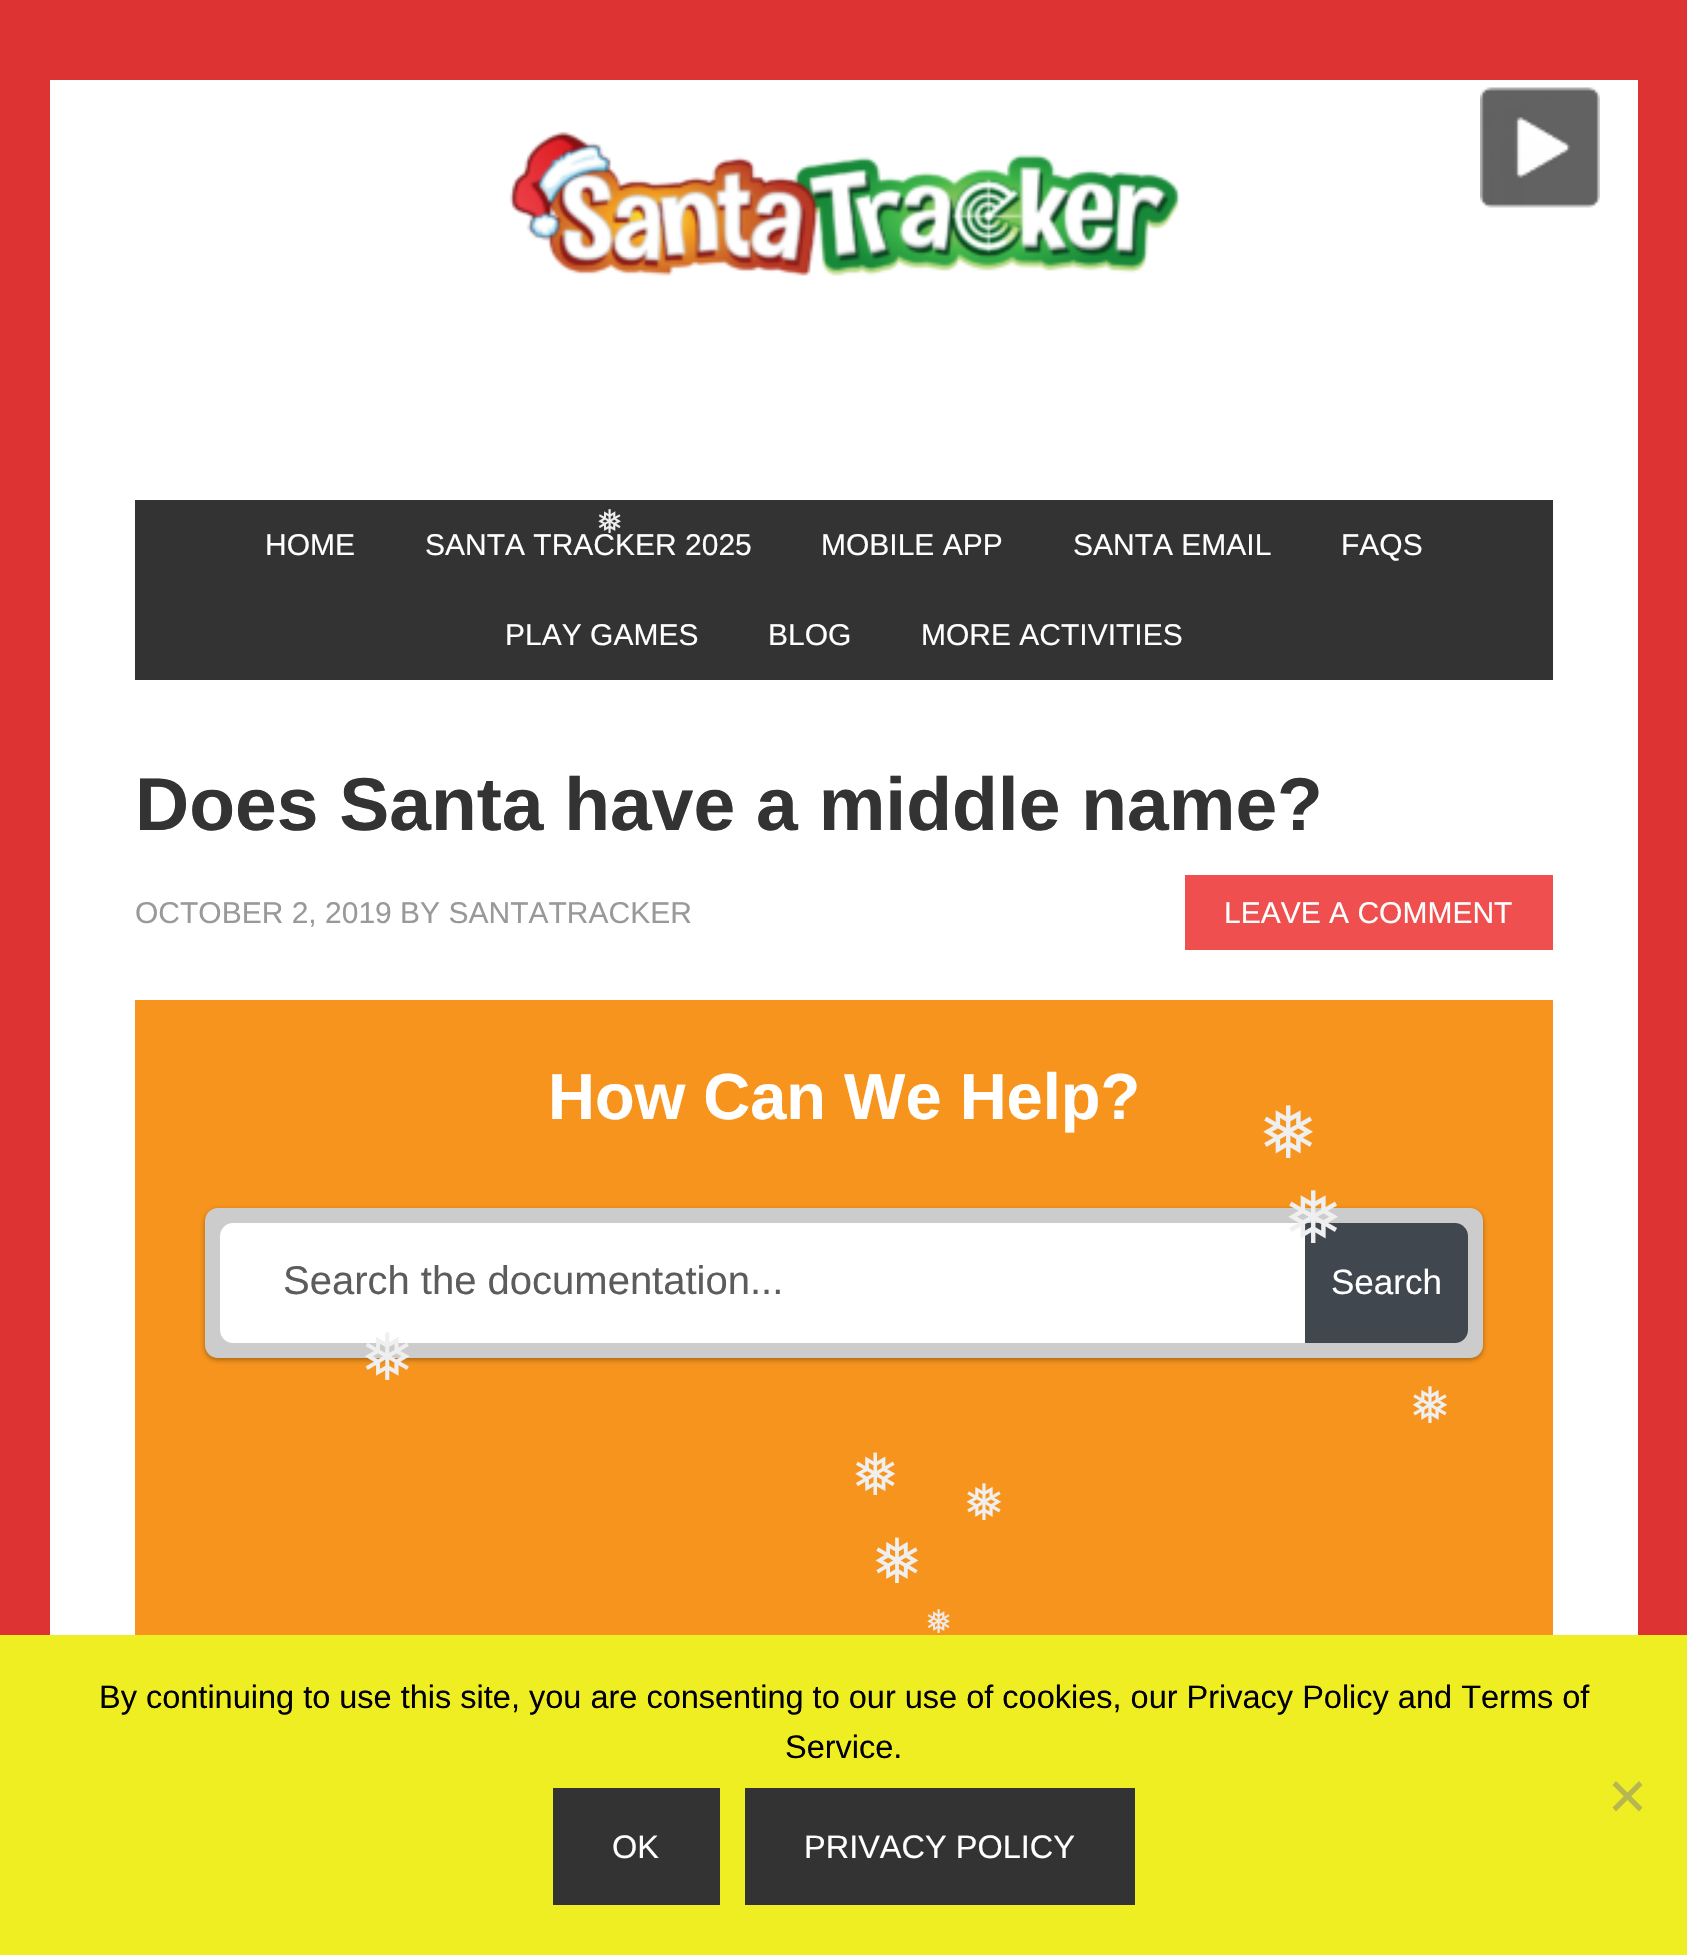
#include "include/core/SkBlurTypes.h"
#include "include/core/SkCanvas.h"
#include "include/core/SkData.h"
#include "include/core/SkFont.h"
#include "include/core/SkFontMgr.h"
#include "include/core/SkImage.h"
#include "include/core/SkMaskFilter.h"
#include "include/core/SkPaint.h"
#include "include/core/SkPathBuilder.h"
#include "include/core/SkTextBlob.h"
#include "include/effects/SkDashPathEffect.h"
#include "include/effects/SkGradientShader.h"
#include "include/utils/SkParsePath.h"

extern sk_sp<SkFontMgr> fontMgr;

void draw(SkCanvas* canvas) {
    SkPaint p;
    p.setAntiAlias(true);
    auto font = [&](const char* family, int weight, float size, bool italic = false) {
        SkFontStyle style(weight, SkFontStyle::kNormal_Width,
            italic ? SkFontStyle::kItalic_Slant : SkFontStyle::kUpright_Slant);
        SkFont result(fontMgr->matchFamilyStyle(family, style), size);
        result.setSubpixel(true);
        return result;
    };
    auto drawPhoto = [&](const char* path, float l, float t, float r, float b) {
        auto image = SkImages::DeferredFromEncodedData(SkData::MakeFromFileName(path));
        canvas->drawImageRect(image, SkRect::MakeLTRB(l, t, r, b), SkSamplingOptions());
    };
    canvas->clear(0xFFDD3333);
    p.setColor(0xFFFFFFFF);
    canvas->drawRect(SkRect::MakeLTRB(50, 80, 1638, 1635), p);
    drawPhoto("media/1.png", 1480, 87, 1600, 208);
    p.setColor(0xFF333333);
    canvas->drawRect(SkRect::MakeLTRB(135, 500, 1553, 680), p);
    auto font1 = font("DejaVu Sans", 400, 32.5f);
    p.setColor(0xFFEFEFEF);
    canvas->drawString("❅", 596, 533, font1, p);
    p.setColor(0xFFF7941D);
    canvas->drawRect(SkRect::MakeLTRB(135, 1000, 1553, 1635), p);
    auto font2 = font("DejaVu Sans", 400, 72);
    p.setColor(0xFFEFEFEF);
    canvas->drawString("❅", 1258, 1158, font2, p);
    p.setColor(0x52000000);
    p.setMaskFilter(SkMaskFilter::MakeBlur(kNormal_SkBlurStyle, 2.5f));
    canvas->drawRoundRect(SkRect::MakeLTRB(205, 1210, 1483, 1360), 13, 13, p);
    p.setMaskFilter(nullptr);
    p.setColor(0xFFCCCCCC);
    canvas->drawRoundRect(SkRect::MakeLTRB(205, 1208, 1483, 1358), 13, 13, p);
    p.setColor(0xFFFFFFFF);
    canvas->drawPath(SkPathBuilder().moveTo(233, 1223).lineTo(1305, 1223).lineTo(1305, 1343).lineTo(233, 1343).cubicTo(226, 1343, 220, 1337, 220, 1330).lineTo(220, 1236).cubicTo(220, 1229, 226, 1223, 233, 1223).close().detach(), p);
    p.setColor(0xFF40474F);
    canvas->drawPath(SkPathBuilder().moveTo(1305, 1223).lineTo(1455, 1223).cubicTo(1462, 1223, 1468, 1229, 1468, 1236).lineTo(1468, 1330).cubicTo(1468, 1337, 1462, 1343, 1455, 1343).lineTo(1305, 1343).close().detach(), p);
    p.setColor(0xFFEFEFEF);
    canvas->drawString("❅", 1283, 1243, font2, p);
    auto font3 = font("DejaVu Sans", 400, 65);
    canvas->drawString("❅", 360, 1380, font3, p);
    auto font4 = font("DejaVu Sans", 400, 50);
    canvas->drawString("❅", 1409, 1423, font4, p);
    auto font5 = font("DejaVu Sans", 400, 58);
    canvas->drawString("❅", 851, 1495, font5, p);
    canvas->drawString("❅", 963, 1520, font4, p);
    auto font6 = font("DejaVu Sans", 400, 62);
    canvas->drawString("❅", 871, 1583, font6, p);
    p.setColor(0xFFEFEAE5);
    canvas->drawString("❅", 925, 1633, font1, p);
    drawPhoto("media/2.png", 509, 131, 1181, 276);
    auto font7 = font("Liberation Sans", 400, 30);
    p.setColor(0xFFFFFFFF);
    {
        const struct { const char* s; float x, y; } items[] = {
            {"HOME", 265, 555},
            {"SANTA TRACKER 2025", 425, 555},
            {"MOBILE APP", 821, 555},
            {"SANTA EMAIL", 1073, 555},
            {"FAQS", 1341, 555},
            {"PLAY GAMES", 505, 645},
            {"BLOG", 768, 645},
            {"MORE ACTIVITIES", 921, 645},
        };
        for (auto [s, x, y] : items) {
            canvas->drawString(s, x, y, font7, p);
        }
    }
    auto font8 = font("Liberation Sans", 700, 75);
    p.setColor(0xFF333333);
    canvas->drawString("Does Santa have a middle name?", 135, 830, font8, p);
    p.setColor(0xFF999999);
    canvas->drawString("OCTOBER 2, 2019 BY SANTATRACKER", 135, 923, font7, p);
    p.setColor(0xFFEF4F4F);
    canvas->drawRect(SkRect::MakeLTRB(1185, 875, 1553, 950), p);
    p.setColor(0xFFFFFFFF);
    canvas->drawString("LEAVE A COMMENT", 1224, 923, font7, p);
    auto font9 = font("Liberation Sans", 700, 65);
    canvas->drawString("How Can We Help?", 548, 1119, font9, p);
    auto font10 = font("Liberation Sans", 400, 40);
    p.setColor(0xFF5C5C5C);
    canvas->drawString("Search the documentation...", 283, 1294, font10, p);
    auto font11 = font("Liberation Sans", 400, 35);
    p.setColor(0xFFFFFFFF);
    canvas->drawString("Search", 1331, 1294, font11, p);
    p.setColor(0xFFEEEE22);
    canvas->drawRect(SkRect::MakeLTRB(0, 1635, 1687, 1955), p);
    auto font12 = font("Liberation Sans", 400, 32.5f);
    p.setColor(0xFF000000);
    canvas->drawString("By continuing to use this site, you are consenting to our use of cookies, our Privacy Policy and Terms of", 99, 1708, font12, p);
    canvas->drawString("Service.", 785, 1758, font12, p);
    p.setColor(0xFFB7B751);
    canvas->drawPath(SkPathBuilder().moveTo(1639, 1781).lineTo(1642.5f, 1785).lineTo(1616, 1811.5f).lineTo(1612.5f, 1807.5f).close().detach(), p);
    canvas->drawPath(SkPathBuilder().moveTo(1612.5f, 1785).lineTo(1616, 1781).lineTo(1642.5f, 1807.5f).lineTo(1639, 1811.5f).close().detach(), p);
    p.setColor(0xFF333333);
    canvas->drawRect(SkRect::MakeLTRB(553, 1788, 720, 1905), p);
    p.setColor(0xFFFFFFFF);
    canvas->drawString("OK", 612, 1858, font12, p);
    p.setColor(0xFF333333);
    canvas->drawRect(SkRect::MakeLTRB(745, 1788, 1135, 1905), p);
    p.setColor(0xFFFFFFFF);
    canvas->drawString("PRIVACY POLICY", 804, 1858, font12, p);
}
